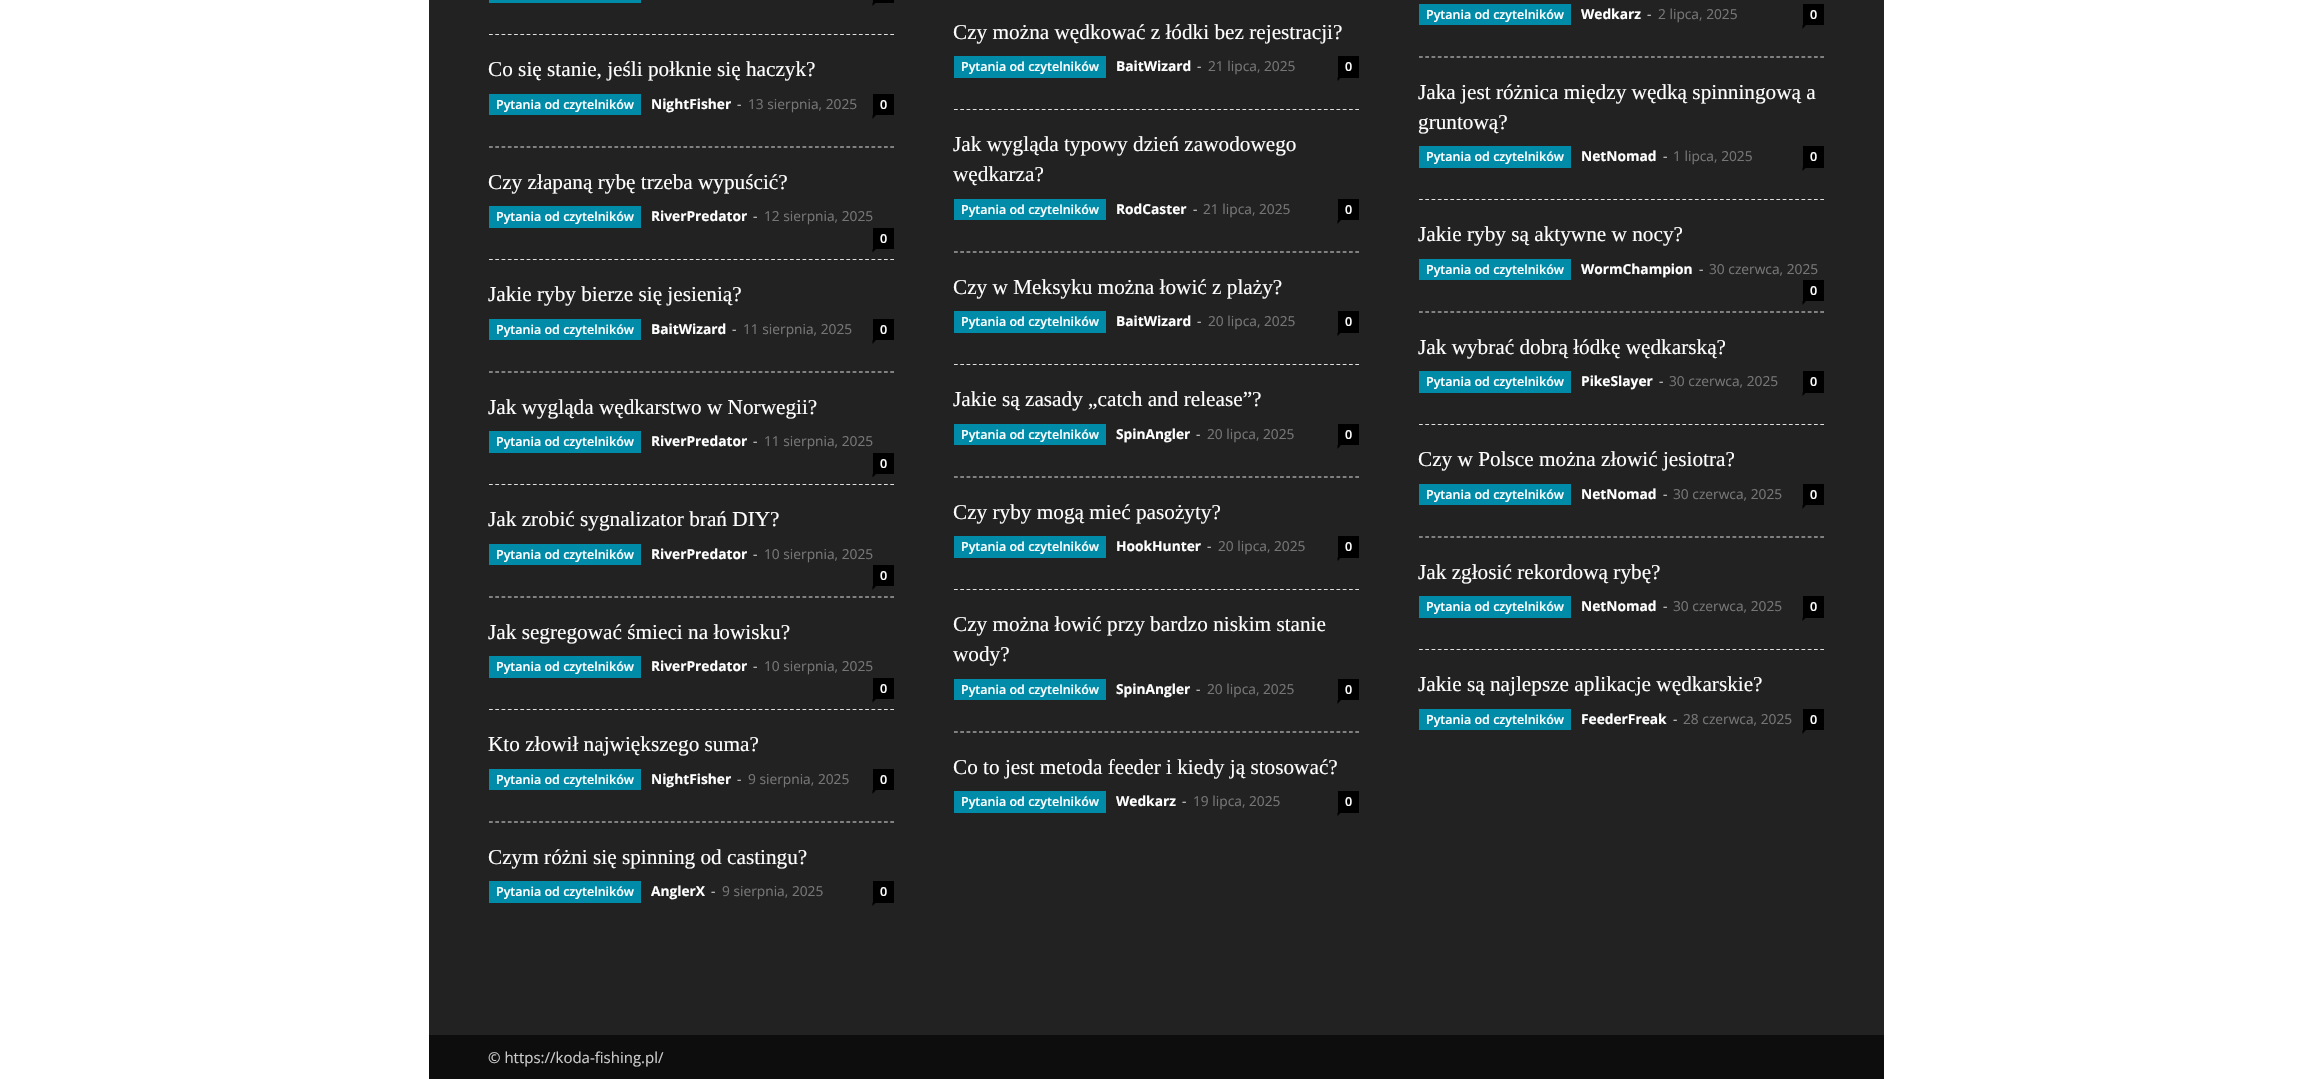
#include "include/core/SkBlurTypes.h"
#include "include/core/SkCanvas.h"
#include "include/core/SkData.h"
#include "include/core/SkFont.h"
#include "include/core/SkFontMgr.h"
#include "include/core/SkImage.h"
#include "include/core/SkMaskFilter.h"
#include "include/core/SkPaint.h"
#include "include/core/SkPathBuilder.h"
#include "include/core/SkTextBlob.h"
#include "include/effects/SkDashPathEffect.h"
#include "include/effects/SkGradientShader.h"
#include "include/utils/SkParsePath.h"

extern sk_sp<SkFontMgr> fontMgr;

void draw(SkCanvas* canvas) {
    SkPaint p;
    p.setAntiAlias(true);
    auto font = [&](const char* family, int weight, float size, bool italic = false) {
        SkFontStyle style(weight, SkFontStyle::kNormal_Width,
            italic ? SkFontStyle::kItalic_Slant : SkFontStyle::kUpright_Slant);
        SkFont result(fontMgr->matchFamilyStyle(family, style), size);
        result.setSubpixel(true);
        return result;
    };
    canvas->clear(0xFFFFFFFF);
    p.setColor(0xFF222222);
    canvas->drawRect(SkRect::MakeLTRB(429, 0, 1884, 1035), p);
    p.setStyle(SkPaint::kStroke_Style);
    p.setStrokeWidth(1.2f);
    p.setColor(0xFFE0E0E0);
    p.setPathEffect(SkDashPathEffect::Make({{3.75f, 2.52f}}, 0));
    canvas->drawPath(SkPathBuilder().moveTo(489, 34.5f).lineTo(894, 34.5f).detach(), p);
    p.setPathEffect(nullptr);
    p.setStyle(SkPaint::kFill_Style);
    p.setColor(0xFF008CA8);
    canvas->drawRect(SkRect::MakeLTRB(489, 0, 641, 3), p);
    p.setColor(0xFF000000);
    canvas->drawRect(SkRect::MakeLTRB(873, 0, 894, 3), p);
    canvas->drawPath(SkPathBuilder().moveTo(872.5f, 2.5f).lineTo(876, 2.5f).lineTo(872.5f, 6).close().detach(), p);
    p.setStyle(SkPaint::kStroke_Style);
    p.setColor(0xFFE0E0E0);
    p.setPathEffect(SkDashPathEffect::Make({{3.75f, 2.52f}}, 0));
    canvas->drawPath(SkPathBuilder().moveTo(489, 147).lineTo(894, 147).detach(), p);
    p.setPathEffect(nullptr);
    auto font1 = font("Liberation Serif", 400, 21.25f);
    p.setStyle(SkPaint::kFill_Style);
    p.setColor(0xFFFFFFFF);
    canvas->drawString("Co się stanie, jeśli połknie się haczyk?", 488, 76, font1, p);
    p.setColor(0xFF008CA8);
    canvas->drawRect(SkRect::MakeLTRB(489, 94, 641, 115), p);
    auto font2 = font("Open Sans", 600, 12.5f);
    p.setColor(0xFFFFFFFF);
    canvas->drawString("Pytania od czytelników", 496, 109, font2, p);
    auto font3 = font("Open Sans", 700, 13.75f);
    canvas->drawString("NightFisher", 651, 109, font3, p);
    auto font4 = font("Open Sans", 400, 13.75f);
    p.setColor(0xFFCCCCCC);
    canvas->drawString("-", 737, 109, font4, p);
    p.setColor(0xFF767676);
    canvas->drawString("13 sierpnia, 2025", 748, 109, font4, p);
    p.setColor(0xFF000000);
    canvas->drawRect(SkRect::MakeLTRB(873, 94, 894, 115), p);
    p.setColor(0xFFFFFFFF);
    canvas->drawString("0", 880, 109, font2, p);
    p.setColor(0xFF000000);
    canvas->drawPath(SkPathBuilder().moveTo(872.5f, 115).lineTo(876, 115).lineTo(872.5f, 119).close().detach(), p);
    p.setStyle(SkPaint::kStroke_Style);
    p.setColor(0xFFE0E0E0);
    p.setPathEffect(SkDashPathEffect::Make({{3.75f, 2.52f}}, 0));
    canvas->drawPath(SkPathBuilder().moveTo(489, 259.5f).lineTo(894, 259.5f).detach(), p);
    p.setPathEffect(nullptr);
    p.setStyle(SkPaint::kFill_Style);
    p.setColor(0xFFFFFFFF);
    canvas->drawString("Czy złapaną rybę trzeba wypuścić?", 488, 189, font1, p);
    p.setColor(0xFF008CA8);
    canvas->drawRect(SkRect::MakeLTRB(489, 206, 641, 228), p);
    p.setColor(0xFFFFFFFF);
    canvas->drawString("Pytania od czytelników", 496, 221, font2, p);
    canvas->drawString("RiverPredator", 651, 221, font3, p);
    p.setColor(0xFFCCCCCC);
    canvas->drawString("-", 753, 221, font4, p);
    p.setColor(0xFF767676);
    canvas->drawString("12 sierpnia, 2025", 764, 221, font4, p);
    p.setColor(0xFF000000);
    canvas->drawRect(SkRect::MakeLTRB(873, 228, 894, 249), p);
    p.setColor(0xFFFFFFFF);
    canvas->drawString("0", 880, 243, font2, p);
    p.setColor(0xFF000000);
    canvas->drawPath(SkPathBuilder().moveTo(872.5f, 249).lineTo(876, 249).lineTo(872.5f, 252.5f).close().detach(), p);
    p.setStyle(SkPaint::kStroke_Style);
    p.setColor(0xFFE0E0E0);
    p.setPathEffect(SkDashPathEffect::Make({{3.75f, 2.52f}}, 0));
    canvas->drawPath(SkPathBuilder().moveTo(489, 372).lineTo(894, 372).detach(), p);
    p.setPathEffect(nullptr);
    p.setStyle(SkPaint::kFill_Style);
    p.setColor(0xFFFFFFFF);
    canvas->drawString("Jakie ryby bierze się jesienią?", 488, 301, font1, p);
    p.setColor(0xFF008CA8);
    canvas->drawRect(SkRect::MakeLTRB(489, 319, 641, 340), p);
    p.setColor(0xFFFFFFFF);
    canvas->drawString("Pytania od czytelników", 496, 334, font2, p);
    canvas->drawString("BaitWizard", 651, 334, font3, p);
    p.setColor(0xFFCCCCCC);
    canvas->drawString("-", 732, 334, font4, p);
    p.setColor(0xFF767676);
    canvas->drawString("11 sierpnia, 2025", 743, 334, font4, p);
    p.setColor(0xFF000000);
    canvas->drawRect(SkRect::MakeLTRB(873, 319, 894, 340), p);
    p.setColor(0xFFFFFFFF);
    canvas->drawString("0", 880, 334, font2, p);
    p.setColor(0xFF000000);
    canvas->drawPath(SkPathBuilder().moveTo(872.5f, 340).lineTo(876, 340).lineTo(872.5f, 344).close().detach(), p);
    p.setStyle(SkPaint::kStroke_Style);
    p.setColor(0xFFE0E0E0);
    p.setPathEffect(SkDashPathEffect::Make({{3.75f, 2.52f}}, 0));
    canvas->drawPath(SkPathBuilder().moveTo(489, 484.5f).lineTo(894, 484.5f).detach(), p);
    p.setPathEffect(nullptr);
    p.setStyle(SkPaint::kFill_Style);
    p.setColor(0xFFFFFFFF);
    canvas->drawString("Jak wygląda wędkarstwo w Norwegii?", 488, 414, font1, p);
    p.setColor(0xFF008CA8);
    canvas->drawRect(SkRect::MakeLTRB(489, 431, 641, 453), p);
    p.setColor(0xFFFFFFFF);
    canvas->drawString("Pytania od czytelników", 496, 446, font2, p);
    canvas->drawString("RiverPredator", 651, 446, font3, p);
    p.setColor(0xFFCCCCCC);
    canvas->drawString("-", 753, 446, font4, p);
    p.setColor(0xFF767676);
    canvas->drawString("11 sierpnia, 2025", 764, 446, font4, p);
    p.setColor(0xFF000000);
    canvas->drawRect(SkRect::MakeLTRB(873, 453, 894, 474), p);
    p.setColor(0xFFFFFFFF);
    canvas->drawString("0", 880, 468, font2, p);
    p.setColor(0xFF000000);
    canvas->drawPath(SkPathBuilder().moveTo(872.5f, 474).lineTo(876, 474).lineTo(872.5f, 477.5f).close().detach(), p);
    p.setStyle(SkPaint::kStroke_Style);
    p.setColor(0xFFE0E0E0);
    p.setPathEffect(SkDashPathEffect::Make({{3.75f, 2.52f}}, 0));
    canvas->drawPath(SkPathBuilder().moveTo(489, 597).lineTo(894, 597).detach(), p);
    p.setPathEffect(nullptr);
    p.setStyle(SkPaint::kFill_Style);
    p.setColor(0xFFFFFFFF);
    canvas->drawString("Jak zrobić sygnalizator brań DIY?", 488, 526, font1, p);
    p.setColor(0xFF008CA8);
    canvas->drawRect(SkRect::MakeLTRB(489, 544, 641, 565), p);
    p.setColor(0xFFFFFFFF);
    canvas->drawString("Pytania od czytelników", 496, 559, font2, p);
    canvas->drawString("RiverPredator", 651, 559, font3, p);
    p.setColor(0xFFCCCCCC);
    canvas->drawString("-", 753, 559, font4, p);
    p.setColor(0xFF767676);
    canvas->drawString("10 sierpnia, 2025", 764, 559, font4, p);
    p.setColor(0xFF000000);
    canvas->drawRect(SkRect::MakeLTRB(873, 565, 894, 586), p);
    p.setColor(0xFFFFFFFF);
    canvas->drawString("0", 880, 580, font2, p);
    p.setColor(0xFF000000);
    canvas->drawPath(SkPathBuilder().moveTo(872.5f, 586).lineTo(876, 586).lineTo(872.5f, 590).close().detach(), p);
    p.setStyle(SkPaint::kStroke_Style);
    p.setColor(0xFFE0E0E0);
    p.setPathEffect(SkDashPathEffect::Make({{3.75f, 2.52f}}, 0));
    canvas->drawPath(SkPathBuilder().moveTo(489, 709.5f).lineTo(894, 709.5f).detach(), p);
    p.setPathEffect(nullptr);
    p.setStyle(SkPaint::kFill_Style);
    p.setColor(0xFFFFFFFF);
    canvas->drawString("Jak segregować śmieci na łowisku?", 488, 639, font1, p);
    p.setColor(0xFF008CA8);
    canvas->drawRect(SkRect::MakeLTRB(489, 656, 641, 678), p);
    p.setColor(0xFFFFFFFF);
    canvas->drawString("Pytania od czytelników", 496, 671, font2, p);
    canvas->drawString("RiverPredator", 651, 671, font3, p);
    p.setColor(0xFFCCCCCC);
    canvas->drawString("-", 753, 671, font4, p);
    p.setColor(0xFF767676);
    canvas->drawString("10 sierpnia, 2025", 764, 671, font4, p);
    p.setColor(0xFF000000);
    canvas->drawRect(SkRect::MakeLTRB(873, 678, 894, 699), p);
    p.setColor(0xFFFFFFFF);
    canvas->drawString("0", 880, 693, font2, p);
    p.setColor(0xFF000000);
    canvas->drawPath(SkPathBuilder().moveTo(872.5f, 699).lineTo(876, 699).lineTo(872.5f, 702.5f).close().detach(), p);
    p.setStyle(SkPaint::kStroke_Style);
    p.setColor(0xFFE0E0E0);
    p.setPathEffect(SkDashPathEffect::Make({{3.75f, 2.52f}}, 0));
    canvas->drawPath(SkPathBuilder().moveTo(489, 822).lineTo(894, 822).detach(), p);
    p.setPathEffect(nullptr);
    p.setStyle(SkPaint::kFill_Style);
    p.setColor(0xFFFFFFFF);
    canvas->drawString("Kto złowił największego suma?", 488, 751, font1, p);
    p.setColor(0xFF008CA8);
    canvas->drawRect(SkRect::MakeLTRB(489, 769, 641, 790), p);
    p.setColor(0xFFFFFFFF);
    canvas->drawString("Pytania od czytelników", 496, 784, font2, p);
    canvas->drawString("NightFisher", 651, 784, font3, p);
    p.setColor(0xFFCCCCCC);
    canvas->drawString("-", 737, 784, font4, p);
    p.setColor(0xFF767676);
    canvas->drawString("9 sierpnia, 2025", 748, 784, font4, p);
    p.setColor(0xFF000000);
    canvas->drawRect(SkRect::MakeLTRB(873, 769, 894, 790), p);
    p.setColor(0xFFFFFFFF);
    canvas->drawString("0", 880, 784, font2, p);
    p.setColor(0xFF000000);
    canvas->drawPath(SkPathBuilder().moveTo(872.5f, 790).lineTo(876, 790).lineTo(872.5f, 794).close().detach(), p);
    p.setColor(0xFFFFFFFF);
    canvas->drawString("Czym różni się spinning od castingu?", 488, 864, font1, p);
    p.setColor(0xFF008CA8);
    canvas->drawRect(SkRect::MakeLTRB(489, 881, 641, 903), p);
    p.setColor(0xFFFFFFFF);
    canvas->drawString("Pytania od czytelników", 496, 896, font2, p);
    canvas->drawString("AnglerX", 651, 896, font3, p);
    p.setColor(0xFFCCCCCC);
    canvas->drawString("-", 711, 896, font4, p);
    p.setColor(0xFF767676);
    canvas->drawString("9 sierpnia, 2025", 722, 896, font4, p);
    p.setColor(0xFF000000);
    canvas->drawRect(SkRect::MakeLTRB(873, 881, 894, 903), p);
    p.setColor(0xFFFFFFFF);
    canvas->drawString("0", 880, 896, font2, p);
    p.setColor(0xFF000000);
    canvas->drawPath(SkPathBuilder().moveTo(872.5f, 902.5f).lineTo(876, 902.5f).lineTo(872.5f, 906).close().detach(), p);
    p.setStyle(SkPaint::kStroke_Style);
    p.setColor(0xFFE0E0E0);
    p.setPathEffect(SkDashPathEffect::Make({{3.75f, 2.52f}}, 0));
    canvas->drawPath(SkPathBuilder().moveTo(954, 109.5f).lineTo(1359, 109.5f).detach(), p);
    p.setPathEffect(nullptr);
    p.setStyle(SkPaint::kFill_Style);
    p.setColor(0xFFFFFFFF);
    canvas->drawString("Czy można wędkować z łódki bez rejestracji?", 953, 39, font1, p);
    p.setColor(0xFF008CA8);
    canvas->drawRect(SkRect::MakeLTRB(954, 56, 1106, 78), p);
    p.setColor(0xFFFFFFFF);
    canvas->drawString("Pytania od czytelników", 961, 71, font2, p);
    canvas->drawString("BaitWizard", 1116, 71, font3, p);
    p.setColor(0xFFCCCCCC);
    canvas->drawString("-", 1197, 71, font4, p);
    p.setColor(0xFF767676);
    canvas->drawString("21 lipca, 2025", 1208, 71, font4, p);
    p.setColor(0xFF000000);
    canvas->drawRect(SkRect::MakeLTRB(1338, 56, 1359, 78), p);
    p.setColor(0xFFFFFFFF);
    canvas->drawString("0", 1345, 71, font2, p);
    p.setColor(0xFF000000);
    canvas->drawPath(SkPathBuilder().moveTo(1337.5f, 77.5f).lineTo(1341, 77.5f).lineTo(1337.5f, 81).close().detach(), p);
    p.setStyle(SkPaint::kStroke_Style);
    p.setColor(0xFFE0E0E0);
    p.setPathEffect(SkDashPathEffect::Make({{3.75f, 2.52f}}, 0));
    canvas->drawPath(SkPathBuilder().moveTo(954, 252).lineTo(1359, 252).detach(), p);
    p.setPathEffect(nullptr);
    p.setStyle(SkPaint::kFill_Style);
    p.setColor(0xFFFFFFFF);
    canvas->drawString("Jak wygląda typowy dzień zawodowego", 953, 151, font1, p);
    canvas->drawString("wędkarza?", 953, 181, font1, p);
    p.setColor(0xFF008CA8);
    canvas->drawRect(SkRect::MakeLTRB(954, 199, 1106, 220), p);
    p.setColor(0xFFFFFFFF);
    canvas->drawString("Pytania od czytelników", 961, 214, font2, p);
    canvas->drawString("RodCaster", 1116, 214, font3, p);
    p.setColor(0xFFCCCCCC);
    canvas->drawString("-", 1193, 214, font4, p);
    p.setColor(0xFF767676);
    canvas->drawString("21 lipca, 2025", 1203, 214, font4, p);
    p.setColor(0xFF000000);
    canvas->drawRect(SkRect::MakeLTRB(1338, 199, 1359, 220), p);
    p.setColor(0xFFFFFFFF);
    canvas->drawString("0", 1345, 214, font2, p);
    p.setColor(0xFF000000);
    canvas->drawPath(SkPathBuilder().moveTo(1337.5f, 220).lineTo(1341, 220).lineTo(1337.5f, 224).close().detach(), p);
    p.setStyle(SkPaint::kStroke_Style);
    p.setColor(0xFFE0E0E0);
    p.setPathEffect(SkDashPathEffect::Make({{3.75f, 2.52f}}, 0));
    canvas->drawPath(SkPathBuilder().moveTo(954, 364.5f).lineTo(1359, 364.5f).detach(), p);
    p.setPathEffect(nullptr);
    p.setStyle(SkPaint::kFill_Style);
    p.setColor(0xFFFFFFFF);
    canvas->drawString("Czy w Meksyku można łowić z plaży?", 953, 294, font1, p);
    p.setColor(0xFF008CA8);
    canvas->drawRect(SkRect::MakeLTRB(954, 311, 1106, 333), p);
    p.setColor(0xFFFFFFFF);
    canvas->drawString("Pytania od czytelników", 961, 326, font2, p);
    canvas->drawString("BaitWizard", 1116, 326, font3, p);
    p.setColor(0xFFCCCCCC);
    canvas->drawString("-", 1197, 326, font4, p);
    p.setColor(0xFF767676);
    canvas->drawString("20 lipca, 2025", 1208, 326, font4, p);
    p.setColor(0xFF000000);
    canvas->drawRect(SkRect::MakeLTRB(1338, 311, 1359, 333), p);
    p.setColor(0xFFFFFFFF);
    canvas->drawString("0", 1345, 326, font2, p);
    p.setColor(0xFF000000);
    canvas->drawPath(SkPathBuilder().moveTo(1337.5f, 332.5f).lineTo(1341, 332.5f).lineTo(1337.5f, 336).close().detach(), p);
    p.setStyle(SkPaint::kStroke_Style);
    p.setColor(0xFFE0E0E0);
    p.setPathEffect(SkDashPathEffect::Make({{3.75f, 2.52f}}, 0));
    canvas->drawPath(SkPathBuilder().moveTo(954, 477).lineTo(1359, 477).detach(), p);
    p.setPathEffect(nullptr);
    p.setStyle(SkPaint::kFill_Style);
    p.setColor(0xFFFFFFFF);
    canvas->drawString("Jakie są zasady „catch and release”?", 953, 406, font1, p);
    p.setColor(0xFF008CA8);
    canvas->drawRect(SkRect::MakeLTRB(954, 424, 1106, 445), p);
    p.setColor(0xFFFFFFFF);
    canvas->drawString("Pytania od czytelników", 961, 439, font2, p);
    canvas->drawString("SpinAngler", 1116, 439, font3, p);
    p.setColor(0xFFCCCCCC);
    canvas->drawString("-", 1196, 439, font4, p);
    p.setColor(0xFF767676);
    canvas->drawString("20 lipca, 2025", 1207, 439, font4, p);
    p.setColor(0xFF000000);
    canvas->drawRect(SkRect::MakeLTRB(1338, 424, 1359, 445), p);
    p.setColor(0xFFFFFFFF);
    canvas->drawString("0", 1345, 439, font2, p);
    p.setColor(0xFF000000);
    canvas->drawPath(SkPathBuilder().moveTo(1337.5f, 445).lineTo(1341, 445).lineTo(1337.5f, 449).close().detach(), p);
    p.setStyle(SkPaint::kStroke_Style);
    p.setColor(0xFFE0E0E0);
    p.setPathEffect(SkDashPathEffect::Make({{3.75f, 2.52f}}, 0));
    canvas->drawPath(SkPathBuilder().moveTo(954, 589.5f).lineTo(1359, 589.5f).detach(), p);
    p.setPathEffect(nullptr);
    p.setStyle(SkPaint::kFill_Style);
    p.setColor(0xFFFFFFFF);
    canvas->drawString("Czy ryby mogą mieć pasożyty?", 953, 519, font1, p);
    p.setColor(0xFF008CA8);
    canvas->drawRect(SkRect::MakeLTRB(954, 536, 1106, 558), p);
    p.setColor(0xFFFFFFFF);
    canvas->drawString("Pytania od czytelników", 961, 551, font2, p);
    canvas->drawString("HookHunter", 1116, 551, font3, p);
    p.setColor(0xFFCCCCCC);
    canvas->drawString("-", 1207, 551, font4, p);
    p.setColor(0xFF767676);
    canvas->drawString("20 lipca, 2025", 1218, 551, font4, p);
    p.setColor(0xFF000000);
    canvas->drawRect(SkRect::MakeLTRB(1338, 536, 1359, 558), p);
    p.setColor(0xFFFFFFFF);
    canvas->drawString("0", 1345, 551, font2, p);
    p.setColor(0xFF000000);
    canvas->drawPath(SkPathBuilder().moveTo(1337.5f, 557.5f).lineTo(1341, 557.5f).lineTo(1337.5f, 561).close().detach(), p);
    p.setStyle(SkPaint::kStroke_Style);
    p.setColor(0xFFE0E0E0);
    p.setPathEffect(SkDashPathEffect::Make({{3.75f, 2.52f}}, 0));
    canvas->drawPath(SkPathBuilder().moveTo(954, 732).lineTo(1359, 732).detach(), p);
    p.setPathEffect(nullptr);
    p.setStyle(SkPaint::kFill_Style);
    p.setColor(0xFFFFFFFF);
    canvas->drawString("Czy można łowić przy bardzo niskim stanie", 953, 631, font1, p);
    canvas->drawString("wody?", 953, 661, font1, p);
    p.setColor(0xFF008CA8);
    canvas->drawRect(SkRect::MakeLTRB(954, 679, 1106, 700), p);
    p.setColor(0xFFFFFFFF);
    canvas->drawString("Pytania od czytelników", 961, 694, font2, p);
    canvas->drawString("SpinAngler", 1116, 694, font3, p);
    p.setColor(0xFFCCCCCC);
    canvas->drawString("-", 1196, 694, font4, p);
    p.setColor(0xFF767676);
    canvas->drawString("20 lipca, 2025", 1207, 694, font4, p);
    p.setColor(0xFF000000);
    canvas->drawRect(SkRect::MakeLTRB(1338, 679, 1359, 700), p);
    p.setColor(0xFFFFFFFF);
    canvas->drawString("0", 1345, 694, font2, p);
    p.setColor(0xFF000000);
    canvas->drawPath(SkPathBuilder().moveTo(1337.5f, 700).lineTo(1341, 700).lineTo(1337.5f, 704).close().detach(), p);
    p.setColor(0xFFFFFFFF);
    canvas->drawString("Co to jest metoda feeder i kiedy ją stosować?", 953, 774, font1, p);
    p.setColor(0xFF008CA8);
    canvas->drawRect(SkRect::MakeLTRB(954, 791, 1106, 813), p);
    p.setColor(0xFFFFFFFF);
    canvas->drawString("Pytania od czytelników", 961, 806, font2, p);
    canvas->drawString("Wedkarz", 1116, 806, font3, p);
    p.setColor(0xFFCCCCCC);
    canvas->drawString("-", 1182, 806, font4, p);
    p.setColor(0xFF767676);
    canvas->drawString("19 lipca, 2025", 1193, 806, font4, p);
    p.setColor(0xFF000000);
    canvas->drawRect(SkRect::MakeLTRB(1338, 791, 1359, 813), p);
    p.setColor(0xFFFFFFFF);
    canvas->drawString("0", 1345, 806, font2, p);
    p.setColor(0xFF000000);
    canvas->drawPath(SkPathBuilder().moveTo(1337.5f, 812.5f).lineTo(1341, 812.5f).lineTo(1337.5f, 816).close().detach(), p);
    p.setStyle(SkPaint::kStroke_Style);
    p.setColor(0xFFE0E0E0);
    p.setPathEffect(SkDashPathEffect::Make({{3.75f, 2.52f}}, 0));
    canvas->drawPath(SkPathBuilder().moveTo(1419, 57).lineTo(1824, 57).detach(), p);
    p.setPathEffect(nullptr);
    p.setStyle(SkPaint::kFill_Style);
    p.setColor(0xFF008CA8);
    canvas->drawRect(SkRect::MakeLTRB(1419, 4, 1571, 25), p);
    p.setColor(0xFFFFFFFF);
    canvas->drawString("Pytania od czytelników", 1426, 19, font2, p);
    canvas->drawString("Wedkarz", 1581, 19, font3, p);
    p.setColor(0xFFCCCCCC);
    canvas->drawString("-", 1647, 19, font4, p);
    p.setColor(0xFF767676);
    canvas->drawString("2 lipca, 2025", 1658, 19, font4, p);
    p.setColor(0xFF000000);
    canvas->drawRect(SkRect::MakeLTRB(1803, 4, 1824, 25), p);
    p.setColor(0xFFFFFFFF);
    canvas->drawString("0", 1810, 19, font2, p);
    p.setColor(0xFF000000);
    canvas->drawPath(SkPathBuilder().moveTo(1802.5f, 25).lineTo(1806, 25).lineTo(1802.5f, 29).close().detach(), p);
    p.setStyle(SkPaint::kStroke_Style);
    p.setColor(0xFFE0E0E0);
    p.setPathEffect(SkDashPathEffect::Make({{3.75f, 2.52f}}, 0));
    canvas->drawPath(SkPathBuilder().moveTo(1419, 199.5f).lineTo(1824, 199.5f).detach(), p);
    p.setPathEffect(nullptr);
    p.setStyle(SkPaint::kFill_Style);
    p.setColor(0xFFFFFFFF);
    canvas->drawString("Jaka jest różnica między wędką spinningową a", 1418, 99, font1, p);
    canvas->drawString("gruntową?", 1418, 129, font1, p);
    p.setColor(0xFF008CA8);
    canvas->drawRect(SkRect::MakeLTRB(1419, 146, 1571, 168), p);
    p.setColor(0xFFFFFFFF);
    canvas->drawString("Pytania od czytelników", 1426, 161, font2, p);
    canvas->drawString("NetNomad", 1581, 161, font3, p);
    p.setColor(0xFFCCCCCC);
    canvas->drawString("-", 1663, 161, font4, p);
    p.setColor(0xFF767676);
    canvas->drawString("1 lipca, 2025", 1673, 161, font4, p);
    p.setColor(0xFF000000);
    canvas->drawRect(SkRect::MakeLTRB(1803, 146, 1824, 168), p);
    p.setColor(0xFFFFFFFF);
    canvas->drawString("0", 1810, 161, font2, p);
    p.setColor(0xFF000000);
    canvas->drawPath(SkPathBuilder().moveTo(1802.5f, 167.5f).lineTo(1806, 167.5f).lineTo(1802.5f, 171).close().detach(), p);
    p.setStyle(SkPaint::kStroke_Style);
    p.setColor(0xFFE0E0E0);
    p.setPathEffect(SkDashPathEffect::Make({{3.75f, 2.52f}}, 0));
    canvas->drawPath(SkPathBuilder().moveTo(1419, 312).lineTo(1824, 312).detach(), p);
    p.setPathEffect(nullptr);
    p.setStyle(SkPaint::kFill_Style);
    p.setColor(0xFFFFFFFF);
    canvas->drawString("Jakie ryby są aktywne w nocy?", 1418, 241, font1, p);
    p.setColor(0xFF008CA8);
    canvas->drawRect(SkRect::MakeLTRB(1419, 259, 1571, 280), p);
    p.setColor(0xFFFFFFFF);
    canvas->drawString("Pytania od czytelników", 1426, 274, font2, p);
    canvas->drawString("WormChampion", 1581, 274, font3, p);
    p.setColor(0xFFCCCCCC);
    canvas->drawString("-", 1699, 274, font4, p);
    p.setColor(0xFF767676);
    canvas->drawString("30 czerwca, 2025", 1709, 274, font4, p);
    p.setColor(0xFF000000);
    canvas->drawRect(SkRect::MakeLTRB(1803, 280, 1824, 301), p);
    p.setColor(0xFFFFFFFF);
    canvas->drawString("0", 1810, 295, font2, p);
    p.setColor(0xFF000000);
    canvas->drawPath(SkPathBuilder().moveTo(1802.5f, 301).lineTo(1806, 301).lineTo(1802.5f, 305).close().detach(), p);
    p.setStyle(SkPaint::kStroke_Style);
    p.setColor(0xFFE0E0E0);
    p.setPathEffect(SkDashPathEffect::Make({{3.75f, 2.52f}}, 0));
    canvas->drawPath(SkPathBuilder().moveTo(1419, 424.5f).lineTo(1824, 424.5f).detach(), p);
    p.setPathEffect(nullptr);
    p.setStyle(SkPaint::kFill_Style);
    p.setColor(0xFFFFFFFF);
    canvas->drawString("Jak wybrać dobrą łódkę wędkarską?", 1418, 354, font1, p);
    p.setColor(0xFF008CA8);
    canvas->drawRect(SkRect::MakeLTRB(1419, 371, 1571, 393), p);
    p.setColor(0xFFFFFFFF);
    canvas->drawString("Pytania od czytelników", 1426, 386, font2, p);
    canvas->drawString("PikeSlayer", 1581, 386, font3, p);
    p.setColor(0xFFCCCCCC);
    canvas->drawString("-", 1659, 386, font4, p);
    p.setColor(0xFF767676);
    canvas->drawString("30 czerwca, 2025", 1669, 386, font4, p);
    p.setColor(0xFF000000);
    canvas->drawRect(SkRect::MakeLTRB(1803, 371, 1824, 393), p);
    p.setColor(0xFFFFFFFF);
    canvas->drawString("0", 1810, 386, font2, p);
    p.setColor(0xFF000000);
    canvas->drawPath(SkPathBuilder().moveTo(1802.5f, 392.5f).lineTo(1806, 392.5f).lineTo(1802.5f, 396).close().detach(), p);
    p.setStyle(SkPaint::kStroke_Style);
    p.setColor(0xFFE0E0E0);
    p.setPathEffect(SkDashPathEffect::Make({{3.75f, 2.52f}}, 0));
    canvas->drawPath(SkPathBuilder().moveTo(1419, 537).lineTo(1824, 537).detach(), p);
    p.setPathEffect(nullptr);
    p.setStyle(SkPaint::kFill_Style);
    p.setColor(0xFFFFFFFF);
    canvas->drawString("Czy w Polsce można złowić jesiotra?", 1418, 466, font1, p);
    p.setColor(0xFF008CA8);
    canvas->drawRect(SkRect::MakeLTRB(1419, 484, 1571, 505), p);
    p.setColor(0xFFFFFFFF);
    canvas->drawString("Pytania od czytelników", 1426, 499, font2, p);
    canvas->drawString("NetNomad", 1581, 499, font3, p);
    p.setColor(0xFFCCCCCC);
    canvas->drawString("-", 1663, 499, font4, p);
    p.setColor(0xFF767676);
    canvas->drawString("30 czerwca, 2025", 1673, 499, font4, p);
    p.setColor(0xFF000000);
    canvas->drawRect(SkRect::MakeLTRB(1803, 484, 1824, 505), p);
    p.setColor(0xFFFFFFFF);
    canvas->drawString("0", 1810, 499, font2, p);
    p.setColor(0xFF000000);
    canvas->drawPath(SkPathBuilder().moveTo(1802.5f, 505).lineTo(1806, 505).lineTo(1802.5f, 509).close().detach(), p);
    p.setStyle(SkPaint::kStroke_Style);
    p.setColor(0xFFE0E0E0);
    p.setPathEffect(SkDashPathEffect::Make({{3.75f, 2.52f}}, 0));
    canvas->drawPath(SkPathBuilder().moveTo(1419, 649.5f).lineTo(1824, 649.5f).detach(), p);
    p.setPathEffect(nullptr);
    p.setStyle(SkPaint::kFill_Style);
    p.setColor(0xFFFFFFFF);
    canvas->drawString("Jak zgłosić rekordową rybę?", 1418, 579, font1, p);
    p.setColor(0xFF008CA8);
    canvas->drawRect(SkRect::MakeLTRB(1419, 596, 1571, 618), p);
    p.setColor(0xFFFFFFFF);
    canvas->drawString("Pytania od czytelników", 1426, 611, font2, p);
    canvas->drawString("NetNomad", 1581, 611, font3, p);
    p.setColor(0xFFCCCCCC);
    canvas->drawString("-", 1663, 611, font4, p);
    p.setColor(0xFF767676);
    canvas->drawString("30 czerwca, 2025", 1673, 611, font4, p);
    p.setColor(0xFF000000);
    canvas->drawRect(SkRect::MakeLTRB(1803, 596, 1824, 618), p);
    p.setColor(0xFFFFFFFF);
    canvas->drawString("0", 1810, 611, font2, p);
    p.setColor(0xFF000000);
    canvas->drawPath(SkPathBuilder().moveTo(1802.5f, 617.5f).lineTo(1806, 617.5f).lineTo(1802.5f, 621).close().detach(), p);
    p.setColor(0xFFFFFFFF);
    canvas->drawString("Jakie są najlepsze aplikacje wędkarskie?", 1418, 691, font1, p);
    p.setColor(0xFF008CA8);
    canvas->drawRect(SkRect::MakeLTRB(1419, 709, 1571, 730), p);
    p.setColor(0xFFFFFFFF);
    canvas->drawString("Pytania od czytelników", 1426, 724, font2, p);
    canvas->drawString("FeederFreak", 1581, 724, font3, p);
    p.setColor(0xFFCCCCCC);
    canvas->drawString("-", 1673, 724, font4, p);
    p.setColor(0xFF767676);
    canvas->drawString("28 czerwca, 2025", 1683, 724, font4, p);
    p.setColor(0xFF000000);
    canvas->drawRect(SkRect::MakeLTRB(1803, 709, 1824, 730), p);
    p.setColor(0xFFFFFFFF);
    canvas->drawString("0", 1810, 724, font2, p);
    p.setColor(0xFF000000);
    canvas->drawPath(SkPathBuilder().moveTo(1802.5f, 730).lineTo(1806, 730).lineTo(1802.5f, 734).close().detach(), p);
    p.setColor(0xFF0D0D0D);
    canvas->drawRect(SkRect::MakeLTRB(429, 1035, 1884, 1079), p);
    auto font5 = font("Open Sans", 400, 15);
    p.setColor(0xFFCCCCCC);
    canvas->drawString("© https://koda-fishing.pl/", 488, 1063, font5, p);
}
